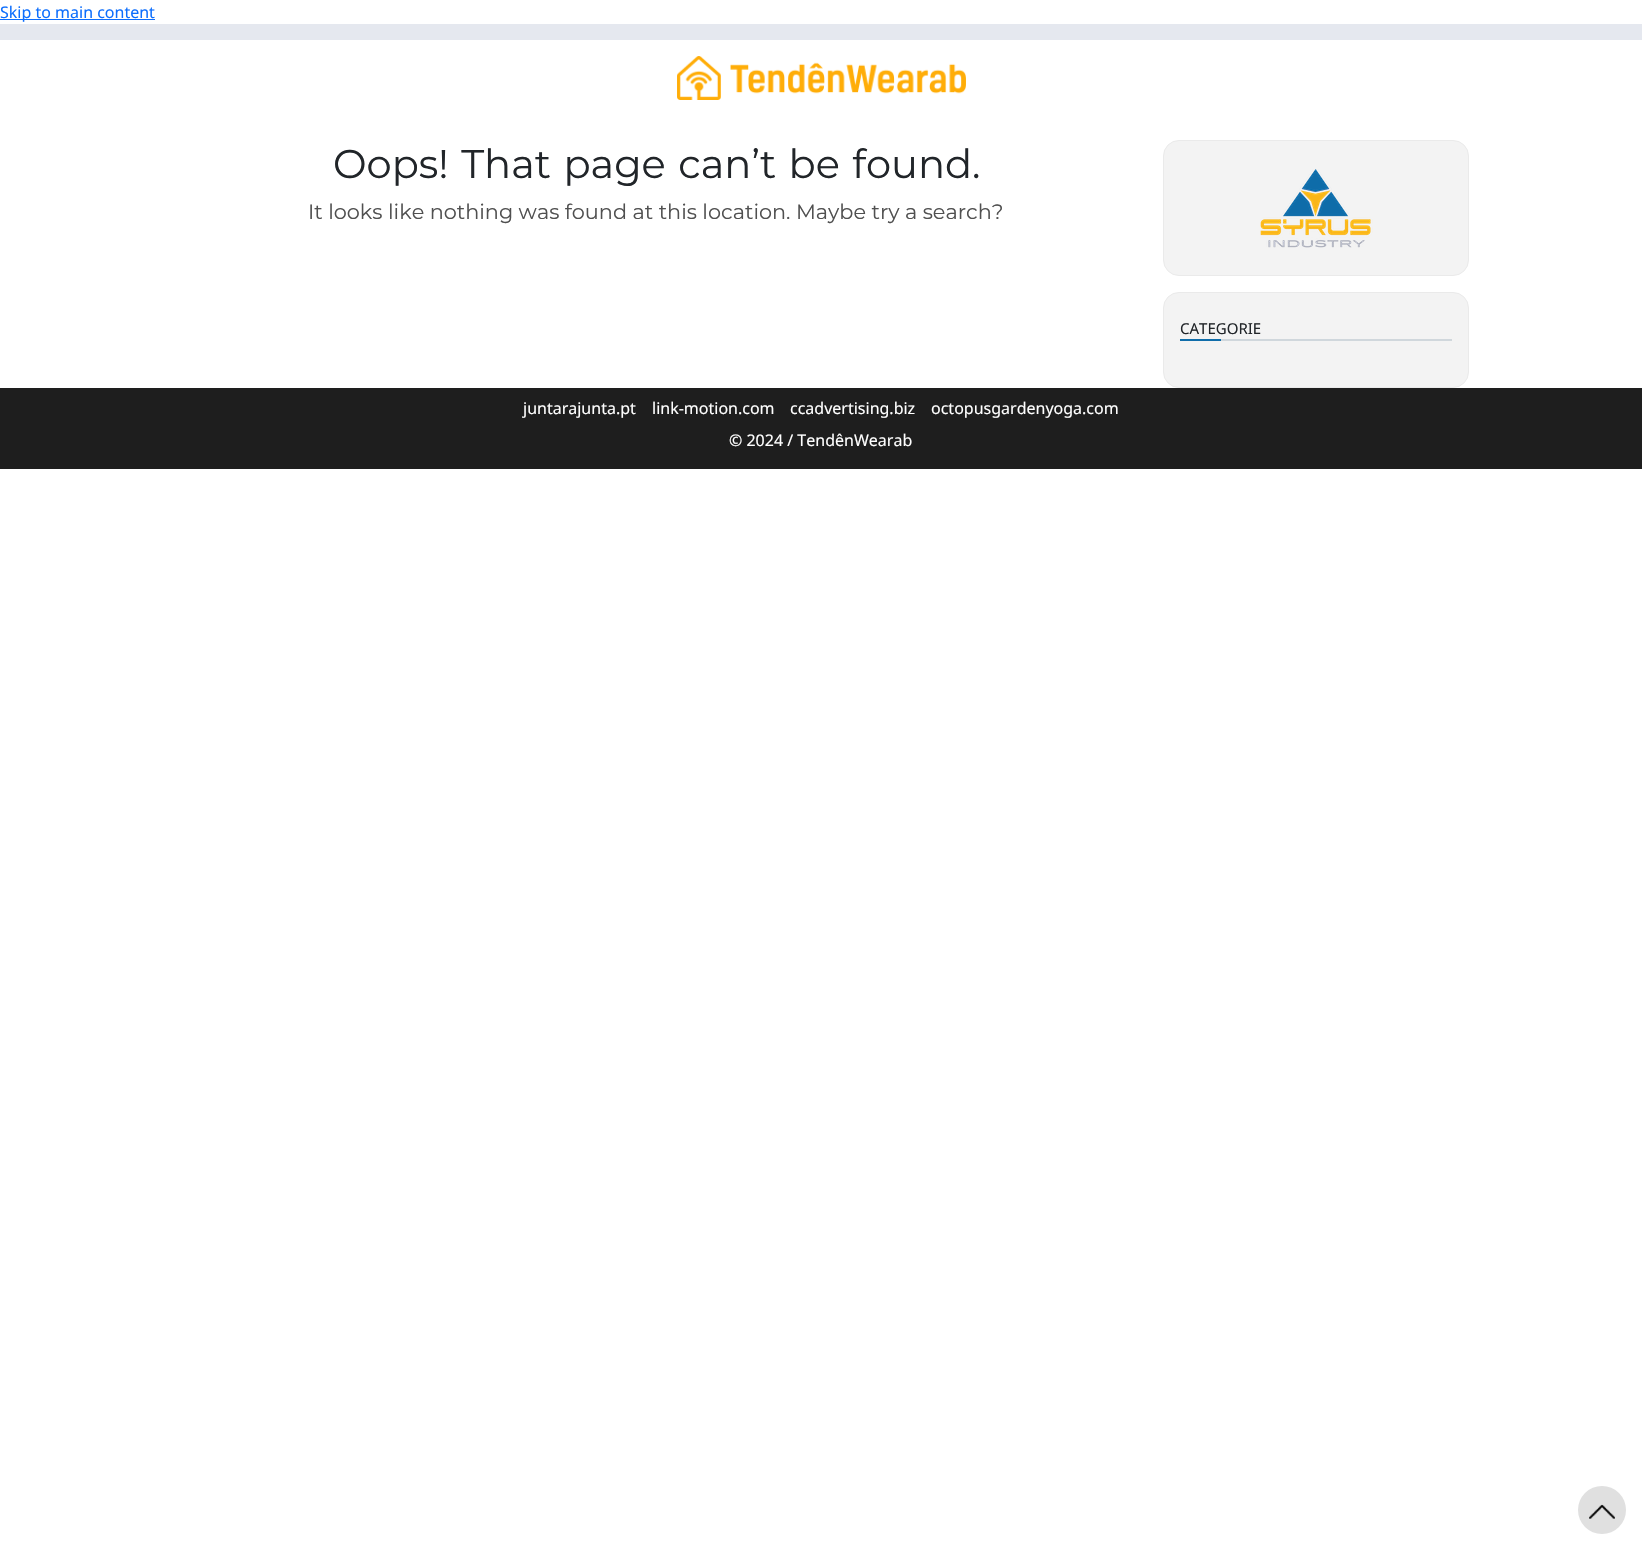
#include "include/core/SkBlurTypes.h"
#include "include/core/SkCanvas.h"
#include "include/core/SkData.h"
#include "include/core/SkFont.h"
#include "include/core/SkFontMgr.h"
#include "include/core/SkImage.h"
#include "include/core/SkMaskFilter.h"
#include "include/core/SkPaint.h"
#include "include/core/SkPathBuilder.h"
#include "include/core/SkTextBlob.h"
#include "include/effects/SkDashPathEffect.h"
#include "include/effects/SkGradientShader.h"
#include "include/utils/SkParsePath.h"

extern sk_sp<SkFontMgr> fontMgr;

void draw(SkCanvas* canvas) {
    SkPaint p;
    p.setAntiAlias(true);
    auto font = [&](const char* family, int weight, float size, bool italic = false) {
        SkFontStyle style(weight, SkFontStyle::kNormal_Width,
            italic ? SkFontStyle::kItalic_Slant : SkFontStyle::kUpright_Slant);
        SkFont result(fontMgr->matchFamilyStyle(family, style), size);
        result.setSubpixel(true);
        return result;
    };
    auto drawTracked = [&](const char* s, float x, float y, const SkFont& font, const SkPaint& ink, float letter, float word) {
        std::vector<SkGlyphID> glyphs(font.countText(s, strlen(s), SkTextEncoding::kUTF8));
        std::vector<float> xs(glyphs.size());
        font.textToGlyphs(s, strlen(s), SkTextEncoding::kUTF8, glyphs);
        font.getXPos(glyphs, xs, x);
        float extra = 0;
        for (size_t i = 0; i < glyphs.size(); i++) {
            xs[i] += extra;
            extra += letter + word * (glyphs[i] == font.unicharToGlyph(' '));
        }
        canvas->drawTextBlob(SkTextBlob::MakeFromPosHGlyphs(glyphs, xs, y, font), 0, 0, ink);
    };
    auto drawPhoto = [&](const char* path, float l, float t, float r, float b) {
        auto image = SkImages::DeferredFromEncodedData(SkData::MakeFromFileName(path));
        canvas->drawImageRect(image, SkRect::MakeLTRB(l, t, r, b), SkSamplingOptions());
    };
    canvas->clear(0xFFFFFFFF);
    p.setColor(0xFF0D6EFD);
    canvas->drawRect(SkRect::MakeLTRB(0, 19, 155, 20), p);
    auto font1 = font("Noto Sans", 400, 16);
    canvas->drawString("Skip to main content", 0, 18, font1, p);
    p.setColor(0xFFE5E8EF);
    canvas->drawRect(SkRect::MakeLTRB(0, 24, 1642, 40), p);
    drawPhoto("media/1.png", 677, 56, 966, 100);
    auto font2 = font("Montserrat", 400, 40);
    p.setColor(0xFF212529);
    drawTracked("Oops! That page can’t be found.", 333, 178, font2, p, 0, 2);
    auto font3 = font("Montserrat", 400, 20.8f);
    p.setColor(0xFF505050);
    canvas->drawString("It looks like nothing was found at this location. Maybe try a search?", 308, 219, font3, p);
    p.setColor(0xFFF3F3F3);
    canvas->drawRoundRect(SkRect::MakeLTRB(1163.5f, 140.5f, 1468.5f, 275.5f), 15.5f, 15.5f, p);
    p.setStyle(SkPaint::kStroke_Style);
    p.setStrokeWidth(1);
    p.setColor(0xFFEAEAEA);
    canvas->drawRoundRect(SkRect::MakeLTRB(1163.5f, 140.5f, 1468.5f, 275.5f), 15.5f, 15.5f, p);
    drawPhoto("media/2.png", 1260, 169, 1373, 248);
    p.setStyle(SkPaint::kFill_Style);
    p.setColor(0xFFF3F3F3);
    canvas->drawRoundRect(SkRect::MakeLTRB(1163.5f, 292.5f, 1468.5f, 387.5f), 15.5f, 15.5f, p);
    p.setStyle(SkPaint::kStroke_Style);
    p.setColor(0xFFEAEAEA);
    canvas->drawRoundRect(SkRect::MakeLTRB(1163.5f, 292.5f, 1468.5f, 387.5f), 15.5f, 15.5f, p);
    auto font4 = font("Noto Sans", 400, 15);
    p.setStyle(SkPaint::kFill_Style);
    p.setColor(0xFF212529);
    canvas->drawString("CATEGORIE", 1180, 334, font4, p);
    {
        const struct { float l, t, r, b; SkColor color; } items[] = {
            {1180, 339, 1221, 341, 0xFF0F6DAA},
            {1221, 339, 1452, 341, 0xFFD0D7DC},
            {0, 388, 1642, 469, 0xFF1E1E1E},
        };
        for (auto [l, t, r, b, color] : items) {
            p.setColor(color);
            canvas->drawRect(SkRect::MakeLTRB(l, t, r, b), p);
        }
    }
    p.setColor(0xFFFFFFFF);
    {
        const struct { const char* s; float x, y; } items[] = {
            {"juntarajunta.pt", 523, 414},
            {"link-motion.com", 652, 414},
            {"ccadvertising.biz", 790, 414},
            {"octopusgardenyoga.com", 931, 414},
            {"© 2024 / TendênWearab", 729, 446},
        };
        for (auto [s, x, y] : items) {
            canvas->drawString(s, x, y, font1, p);
        }
    }
    p.setColor(0xFFE0E0E0);
    canvas->drawCircle(1602, 1510, 24, p);
    drawPhoto("media/3.png", 1589, 1504, 1615, 1519);
}
